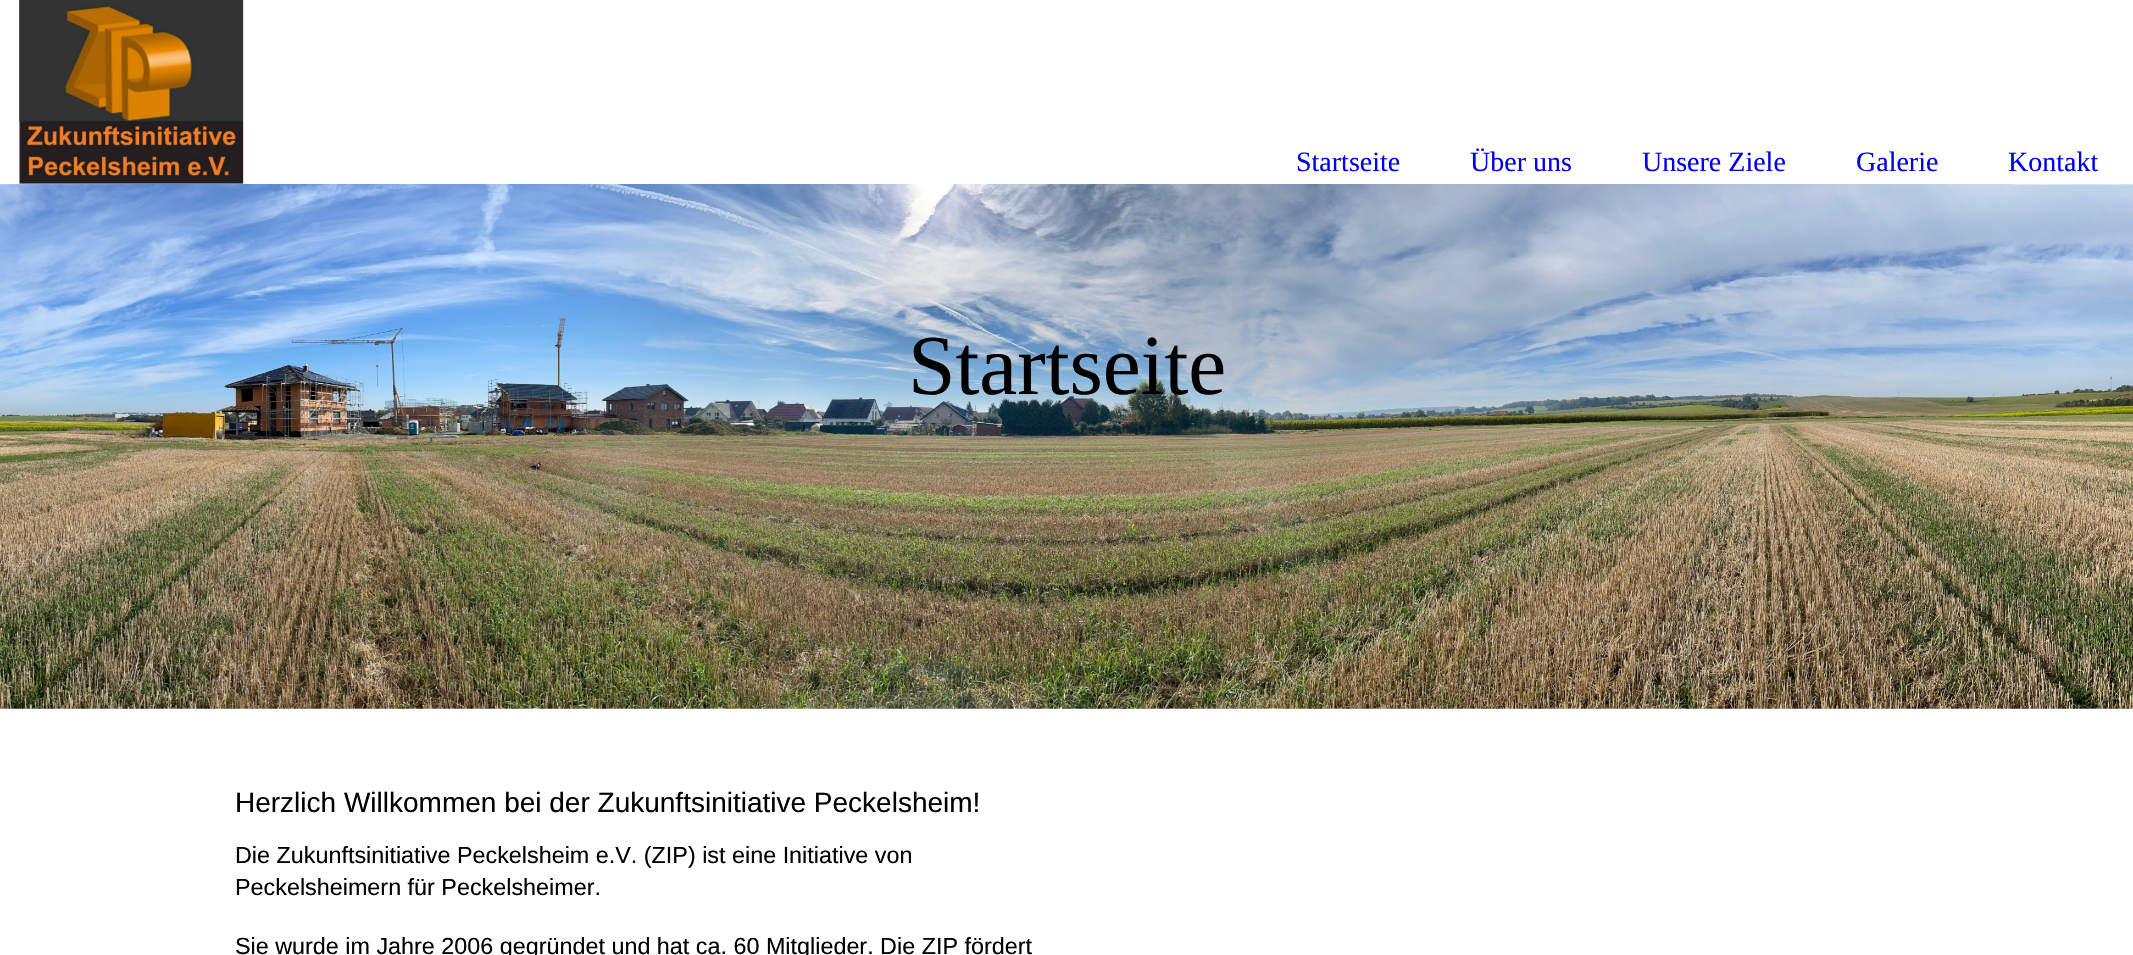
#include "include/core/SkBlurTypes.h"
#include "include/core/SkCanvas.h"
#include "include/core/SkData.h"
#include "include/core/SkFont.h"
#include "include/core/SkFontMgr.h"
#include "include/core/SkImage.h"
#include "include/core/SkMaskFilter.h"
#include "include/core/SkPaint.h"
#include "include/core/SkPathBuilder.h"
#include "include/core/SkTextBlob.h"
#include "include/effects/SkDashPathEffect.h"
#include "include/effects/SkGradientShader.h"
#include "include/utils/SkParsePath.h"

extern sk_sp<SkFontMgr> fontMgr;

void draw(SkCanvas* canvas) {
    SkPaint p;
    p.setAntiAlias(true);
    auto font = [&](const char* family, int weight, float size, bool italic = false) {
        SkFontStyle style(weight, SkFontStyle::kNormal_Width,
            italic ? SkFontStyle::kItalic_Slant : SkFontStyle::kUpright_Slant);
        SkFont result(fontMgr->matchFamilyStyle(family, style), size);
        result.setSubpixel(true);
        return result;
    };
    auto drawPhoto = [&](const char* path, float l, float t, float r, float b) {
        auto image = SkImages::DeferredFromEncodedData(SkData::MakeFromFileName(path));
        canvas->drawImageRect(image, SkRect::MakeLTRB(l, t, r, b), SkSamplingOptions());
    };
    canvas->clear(0xFFFFFFFF);
    drawPhoto("media/1.png", 19, 0, 244, 184);
    auto font1 = font("Liberation Serif", 400, 28);
    p.setColor(0xFF0000EE);
    {
        const struct { const char* s; float x, y; } items[] = {
            {"Startseite", 1296, 171},
            {"Über uns", 1470, 171},
            {"Unsere Ziele", 1642, 171},
            {"Galerie", 1856, 171},
            {"Kontakt", 2008, 171},
        };
        for (auto [s, x, y] : items) {
            canvas->drawString(s, x, y, font1, p);
        }
    }
    drawPhoto("media/2.png", 0, 184, 2133, 709);
    auto font2 = font("Liberation Serif", 400, 85.5f);
    p.setColor(0xFF000000);
    canvas->drawString("Startseite", 908, 394, font2, p);
    auto font3 = font("Liberation Sans", 400, 28);
    canvas->drawString("Herzlich Willkommen bei der Zukunftsinitiative Peckelsheim!", 235, 812, font3, p);
    auto font4 = font("Liberation Sans", 400, 23.35f);
    {
        const struct { const char* s; float x, y; } items[] = {
            {"Die Zukunftsinitiative Peckelsheim e.V. (ZIP) ist eine Initiative von", 235, 863},
            {"Peckelsheimern für Peckelsheimer.", 235, 895},
            {"Sie wurde im Jahre 2006 gegründet und hat ca. 60 Mitglieder. Die ZIP fördert", 235, 954},
        };
        for (auto [s, x, y] : items) {
            canvas->drawString(s, x, y, font4, p);
        }
    }
}
